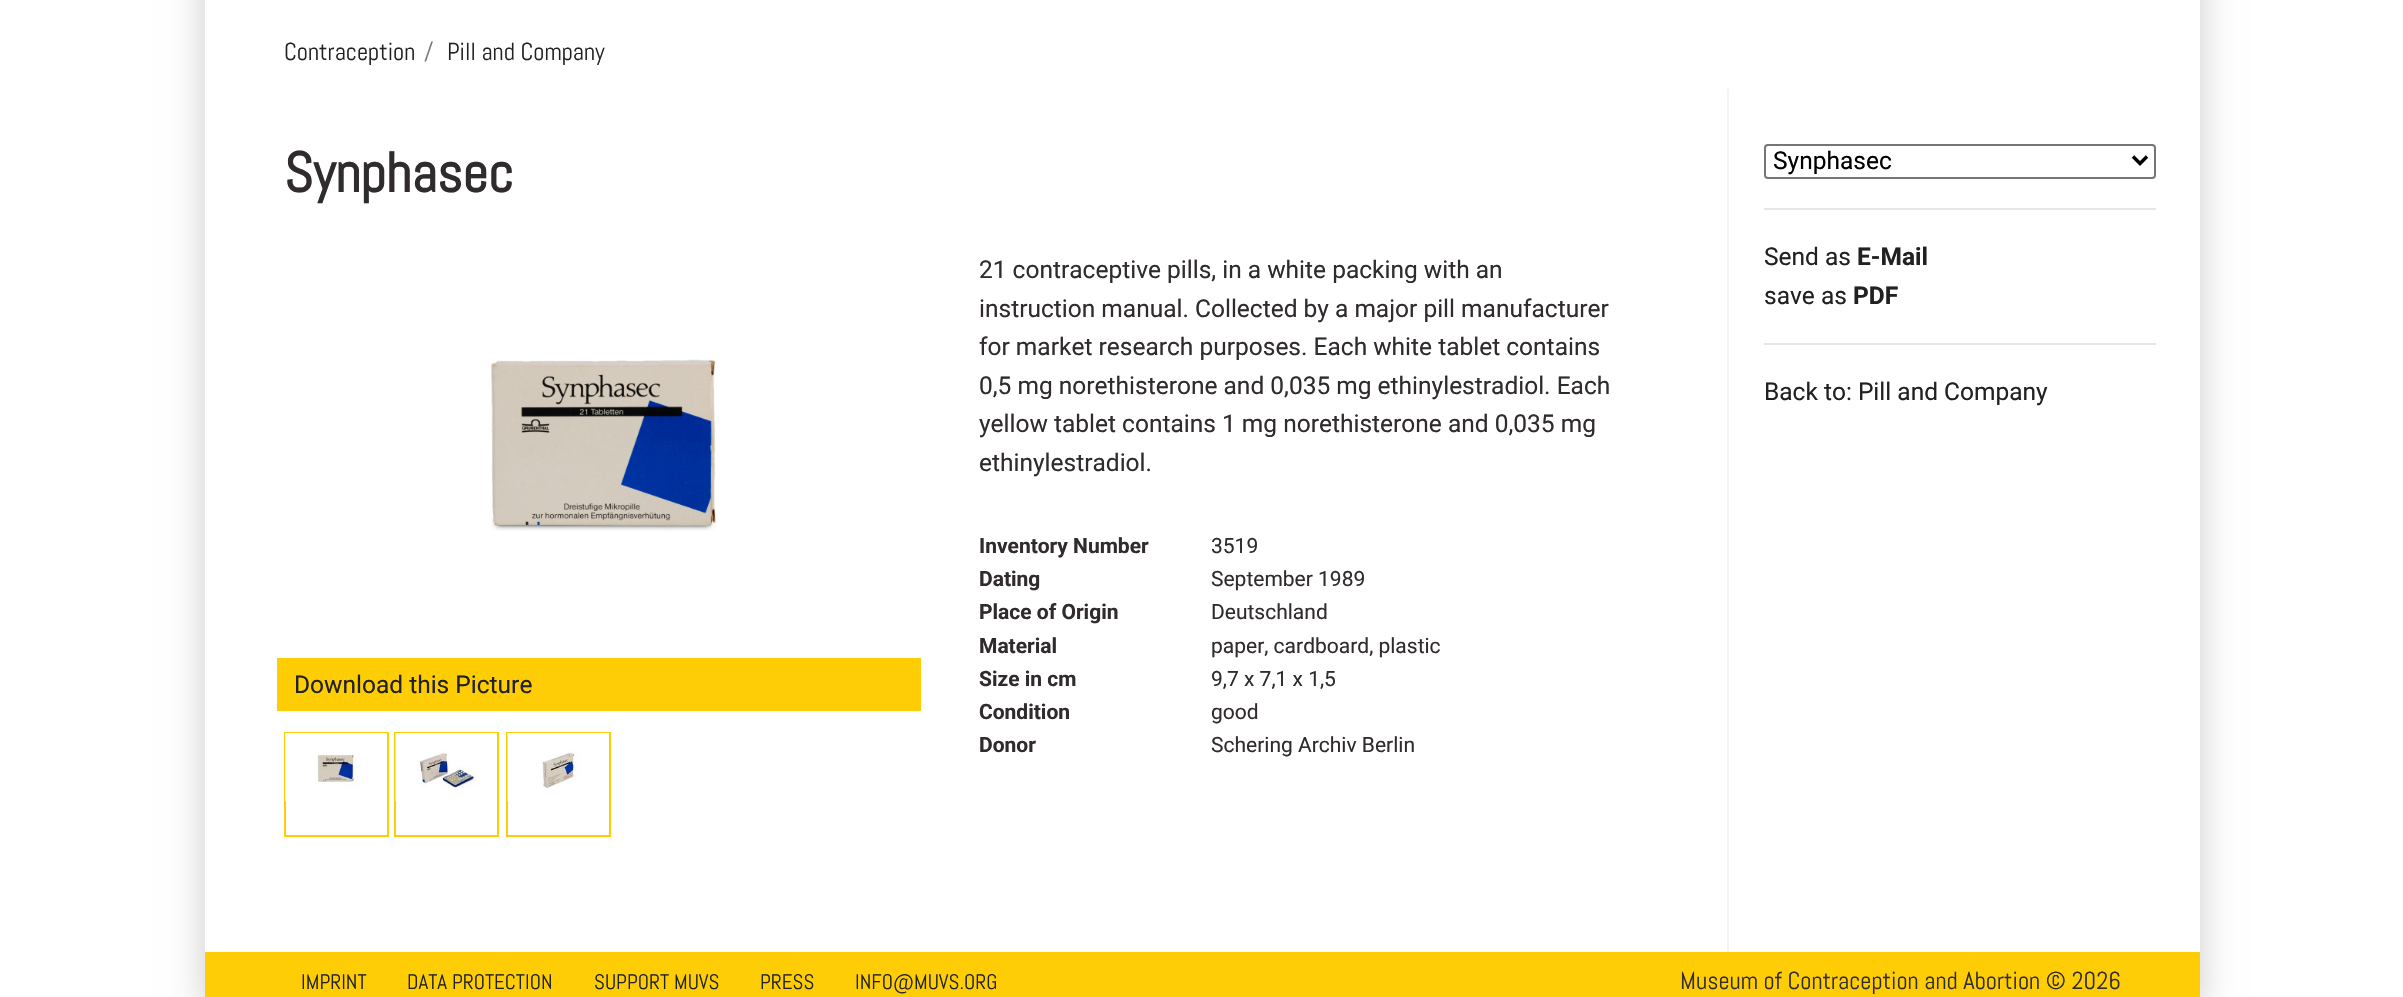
#include "include/core/SkBlurTypes.h"
#include "include/core/SkCanvas.h"
#include "include/core/SkData.h"
#include "include/core/SkFont.h"
#include "include/core/SkFontMgr.h"
#include "include/core/SkImage.h"
#include "include/core/SkMaskFilter.h"
#include "include/core/SkPaint.h"
#include "include/core/SkPathBuilder.h"
#include "include/core/SkTextBlob.h"
#include "include/effects/SkDashPathEffect.h"
#include "include/effects/SkGradientShader.h"
#include "include/utils/SkParsePath.h"

extern sk_sp<SkFontMgr> fontMgr;

void draw(SkCanvas* canvas) {
    SkPaint p;
    p.setAntiAlias(true);
    auto font = [&](const char* family, int weight, float size, bool italic = false) {
        SkFontStyle style(weight, SkFontStyle::kNormal_Width,
            italic ? SkFontStyle::kItalic_Slant : SkFontStyle::kUpright_Slant);
        SkFont result(fontMgr->matchFamilyStyle(family, style), size);
        result.setSubpixel(true);
        return result;
    };
    auto drawPhoto = [&](const char* path, float l, float t, float r, float b) {
        auto image = SkImages::DeferredFromEncodedData(SkData::MakeFromFileName(path));
        canvas->drawImageRect(image, SkRect::MakeLTRB(l, t, r, b), SkSamplingOptions());
    };
    canvas->clear(0xFFFFFFFF);
    canvas->save();
    canvas->clipPath(SkPathBuilder(SkPathFillType::kEvenOdd).moveTo(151, 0).lineTo(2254, 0).lineTo(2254, 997).lineTo(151, 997).close().moveTo(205, -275).lineTo(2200, -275).lineTo(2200, 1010).lineTo(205, 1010).close().detach(), true);
    p.setColor(0xFFCCCCCC);
    p.setMaskFilter(SkMaskFilter::MakeBlur(kNormal_SkBlurStyle, 17.5f));
    canvas->drawRect(SkRect::MakeLTRB(205, -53, 2200, 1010), p);
    p.setMaskFilter(nullptr);
    canvas->restore();
    auto font1 = font("Abel", 400, 24.5f);
    p.setColor(0xFF212121);
    canvas->drawString("Contraception", 284, 60, font1, p);
    p.setColor(0xFF777777);
    canvas->drawString("/", 424, 60, font1, p);
    p.setColor(0xFF212121);
    canvas->drawString("Pill and Company", 447, 60, font1, p);
    auto font2 = font("Abel", 700, 56);
    p.setColor(0xFF302B2D);
    canvas->drawString("Synphasec", 284, 192, font2, p);
    drawPhoto("media/1.png", 491, 359, 716, 531);
    p.setColor(0xFFFECD06);
    canvas->drawRect(SkRect::MakeLTRB(277, 658, 921, 711), p);
    auto font3 = font("Roboto", 400, 24.5f);
    p.setColor(0xFF212121);
    canvas->drawString("Download this Picture", 294, 693, font3, p);
    p.setStyle(SkPaint::kStroke_Style);
    p.setStrokeWidth(2);
    p.setColor(0xFFFECD06);
    canvas->drawRect(SkRect::MakeLTRB(285, 733, 388, 836), p);
    drawPhoto("media/2.png", 285, 733, 387, 802);
    canvas->drawRect(SkRect::MakeLTRB(395, 733, 498, 836), p);
    drawPhoto("media/3.png", 395, 733, 497, 802);
    canvas->drawRect(SkRect::MakeLTRB(507, 733, 610, 836), p);
    drawPhoto("media/4.png", 507, 733, 609, 802);
    p.setStyle(SkPaint::kFill_Style);
    p.setColor(0xFF302B2D);
    {
        const struct { const char* s; float x, y; } items[] = {
            {"21 contraceptive pills, in a white packing with an", 979, 278},
            {"instruction manual. Collected by a major pill manufacturer", 979, 317},
            {"for market research purposes. Each white tablet contains", 979, 355},
            {"0,5 mg norethisterone and 0,035 mg ethinylestradiol. Each", 979, 394},
            {"yellow tablet contains 1 mg norethisterone and 0,035 mg", 979, 432},
            {"ethinylestradiol.", 979, 471},
        };
        for (auto [s, x, y] : items) {
            canvas->drawString(s, x, y, font3, p);
        }
    }
    auto font4 = font("Roboto", 700, 21);
    canvas->drawString("Inventory Number", 979, 553, font4, p);
    auto font5 = font("Roboto", 400, 21);
    canvas->drawString("3519", 1211, 553, font5, p);
    canvas->drawString("Dating", 979, 586, font4, p);
    canvas->drawString("September 1989", 1211, 586, font5, p);
    canvas->drawString("Place of Origin", 979, 619, font4, p);
    canvas->drawString("Deutschland", 1211, 619, font5, p);
    canvas->drawString("Material", 979, 653, font4, p);
    canvas->drawString("paper, cardboard, plastic", 1211, 653, font5, p);
    canvas->drawString("Size in cm", 979, 686, font4, p);
    canvas->drawString("9,7 x 7,1 x 1,5", 1211, 686, font5, p);
    canvas->drawString("Condition", 979, 719, font4, p);
    canvas->drawString("good", 1211, 719, font5, p);
    canvas->drawString("Donor", 979, 752, font4, p);
    canvas->drawString("Schering Archiv Berlin", 1211, 752, font5, p);
    p.setColor(0xFFF3F3F3);
    canvas->drawRect(SkRect::MakeLTRB(1727, 89, 1729, 952), p);
    p.setStyle(SkPaint::kStroke_Style);
    p.setColor(0xFF767676);
    canvas->drawRoundRect(SkRect::MakeLTRB(1765, 145, 2155, 178), 3, 3, p);
    p.setStrokeWidth(3.5f);
    p.setColor(0xFF000000);
    canvas->drawPath(SkPathBuilder().moveTo(2133, 156.5f).lineTo(2140, 163.5f).lineTo(2147, 156.5f).detach(), p);
    p.setStyle(SkPaint::kFill_Style);
    canvas->drawString("Synphasec", 1773, 169, font3, p);
    p.setColor(0xFFE6E6E6);
    canvas->drawRect(SkRect::MakeLTRB(1764, 208, 2156, 210), p);
    p.setColor(0xFF212121);
    canvas->drawString("Send as", 1764, 265, font3, p);
    auto font6 = font("Roboto", 700, 24.5f);
    canvas->drawString("E-Mail", 1857, 265, font6, p);
    canvas->drawString("save as", 1764, 304, font3, p);
    canvas->drawString("PDF", 1853, 304, font6, p);
    p.setColor(0xFFE6E6E6);
    canvas->drawRect(SkRect::MakeLTRB(1764, 343, 2156, 345), p);
    p.setColor(0xFF212121);
    canvas->drawString("Back to: Pill and Company", 1764, 400, font3, p);
    p.setColor(0xFFFECD06);
    canvas->drawRect(SkRect::MakeLTRB(205, 952, 2200, 997), p);
    auto font7 = font("Abel", 400, 21);
    p.setColor(0xFF212121);
    {
        const struct { const char* s; float x, y; } items[] = {
            {"IMPRINT", 301, 989},
            {"DATA PROTECTION", 407, 989},
            {"SUPPORT MUVS", 594, 989},
            {"PRESS", 760, 989},
            {"INFO@MUVS.ORG", 855, 989},
        };
        for (auto [s, x, y] : items) {
            canvas->drawString(s, x, y, font7, p);
        }
    }
    p.setColor(0xFF302B2D);
    canvas->drawString("Museum of Contraception and Abortion © 2026", 1680, 989, font1, p);
}
